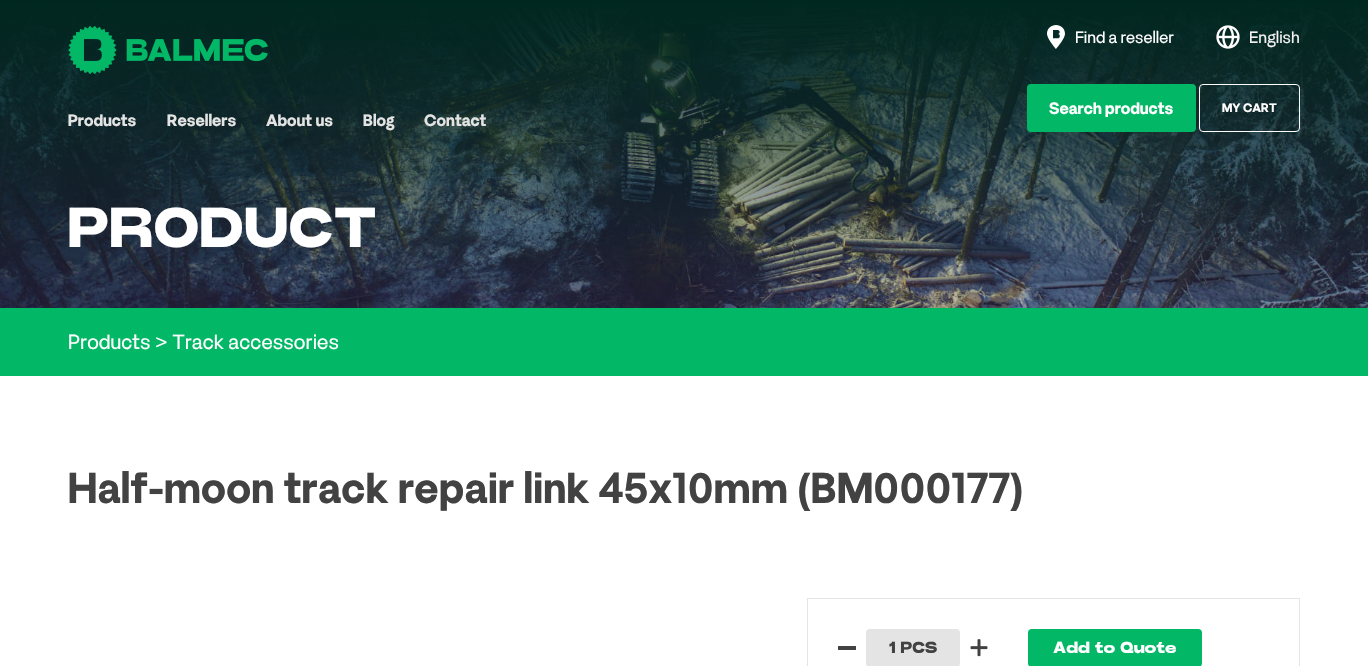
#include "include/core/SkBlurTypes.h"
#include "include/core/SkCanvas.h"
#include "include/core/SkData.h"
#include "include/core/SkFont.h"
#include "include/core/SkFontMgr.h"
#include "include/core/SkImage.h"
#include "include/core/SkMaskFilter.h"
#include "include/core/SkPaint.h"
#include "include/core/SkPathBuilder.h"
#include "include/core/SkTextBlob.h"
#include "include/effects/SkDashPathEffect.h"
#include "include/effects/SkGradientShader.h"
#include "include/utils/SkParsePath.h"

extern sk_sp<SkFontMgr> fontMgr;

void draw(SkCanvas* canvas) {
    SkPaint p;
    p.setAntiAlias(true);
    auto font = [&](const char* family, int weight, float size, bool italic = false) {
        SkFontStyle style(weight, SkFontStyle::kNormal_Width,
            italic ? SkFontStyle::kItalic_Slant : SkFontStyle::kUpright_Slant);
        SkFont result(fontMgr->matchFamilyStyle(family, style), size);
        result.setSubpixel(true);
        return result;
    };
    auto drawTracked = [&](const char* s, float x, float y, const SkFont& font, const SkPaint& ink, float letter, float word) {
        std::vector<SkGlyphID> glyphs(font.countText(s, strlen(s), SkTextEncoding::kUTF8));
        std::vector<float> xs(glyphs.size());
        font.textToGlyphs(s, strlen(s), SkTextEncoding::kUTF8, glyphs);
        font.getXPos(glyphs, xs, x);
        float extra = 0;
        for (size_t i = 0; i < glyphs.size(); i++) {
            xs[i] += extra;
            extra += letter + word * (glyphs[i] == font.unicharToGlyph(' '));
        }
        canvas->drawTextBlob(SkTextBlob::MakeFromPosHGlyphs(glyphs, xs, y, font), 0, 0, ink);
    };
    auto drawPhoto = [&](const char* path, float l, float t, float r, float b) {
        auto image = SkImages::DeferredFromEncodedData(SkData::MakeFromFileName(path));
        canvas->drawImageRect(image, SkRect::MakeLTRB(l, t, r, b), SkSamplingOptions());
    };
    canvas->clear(0xFF02B766);
    drawPhoto("media/1.png", 0, 0, 1368, 308);
    drawPhoto("media/2.png", 1047, 25, 1065, 49);
    auto font1 = font("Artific", 400, 16);
    p.setColor(0xFFFFFFFF);
    canvas->drawString("Find a reseller", 1075, 43, font1, p);
    drawPhoto("media/3.png", 1216, 25, 1240, 49);
    p.setColor(0xFFF2F2F2);
    canvas->drawString("English", 1249, 43, font1, p);
    p.setColor(0xFF02B766);
    canvas->drawRoundRect(SkRect::MakeLTRB(1027, 84, 1196, 132), 4, 4, p);
    auto font2 = font("Artific", 700, 16);
    p.setColor(0xFFFFFFFF);
    canvas->drawString("Search products", 1049, 114, font2, p);
    p.setStyle(SkPaint::kStroke_Style);
    p.setStrokeWidth(1);
    canvas->drawRoundRect(SkRect::MakeLTRB(1199.5f, 84.5f, 1299.5f, 131.5f), 3.5f, 3.5f, p);
    auto font3 = font("Artific", 700, 12);
    p.setStyle(SkPaint::kFill_Style);
    canvas->drawString("MY CART", 1222, 112, font3, p);
    drawPhoto("media/4.png", 68, 26, 268, 74);
    p.setColor(0xFFE4E4E4);
    {
        const struct { const char* s; float x, y; } items[] = {
            {"Products", 68, 126},
            {"Resellers", 167, 126},
            {"About us", 266, 126},
            {"Blog", 363, 126},
            {"Contact", 424, 126},
        };
        for (auto [s, x, y] : items) {
            canvas->drawString(s, x, y, font2, p);
        }
    }
    auto font4 = font("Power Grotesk", 900, 56);
    p.setColor(0xFFFFFFFF);
    drawTracked("PRODUCT", 68, 247, font4, p, 0.5f, 0);
    auto font5 = font("Artific", 400, 20);
    drawTracked("Products > Track accessories", 68, 349, font5, p, 0.1f, 0);
    canvas->drawRect(SkRect::MakeLTRB(0, 376, 1368, 666), p);
    auto font6 = font("Artific", 700, 42);
    p.setColor(0xFF424242);
    drawTracked("Half-moon track repair link 45x10mm (BM000177)", 68, 503, font6, p, 0.25f, 0);
    p.setStyle(SkPaint::kStroke_Style);
    p.setColor(0xFFE4E4E4);
    canvas->drawRect(SkRect::MakeLTRB(807.5f, 598.5f, 1299.5f, 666.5f), p);
    p.setStyle(SkPaint::kFill_Style);
    p.setColor(0xFF424242);
    canvas->drawRect(SkRect::MakeLTRB(838, 646, 856, 650), p);
    p.setColor(0xFFE4E4E4);
    canvas->drawRoundRect(SkRect::MakeLTRB(866, 629, 960, 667), 4, 4, p);
    auto font7 = font("Power Grotesk", 900, 16);
    p.setColor(0xFF424242);
    canvas->drawString("1 PCS", 889, 653, font7, p);
    drawPhoto("media/5.png", 970, 639, 988, 657);
    p.setColor(0xFF02B766);
    canvas->drawRoundRect(SkRect::MakeLTRB(1028, 629, 1202, 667), 4, 4, p);
    p.setColor(0xFFFFFFFF);
    canvas->drawString("Add to Quote", 1053, 653, font7, p);
}
